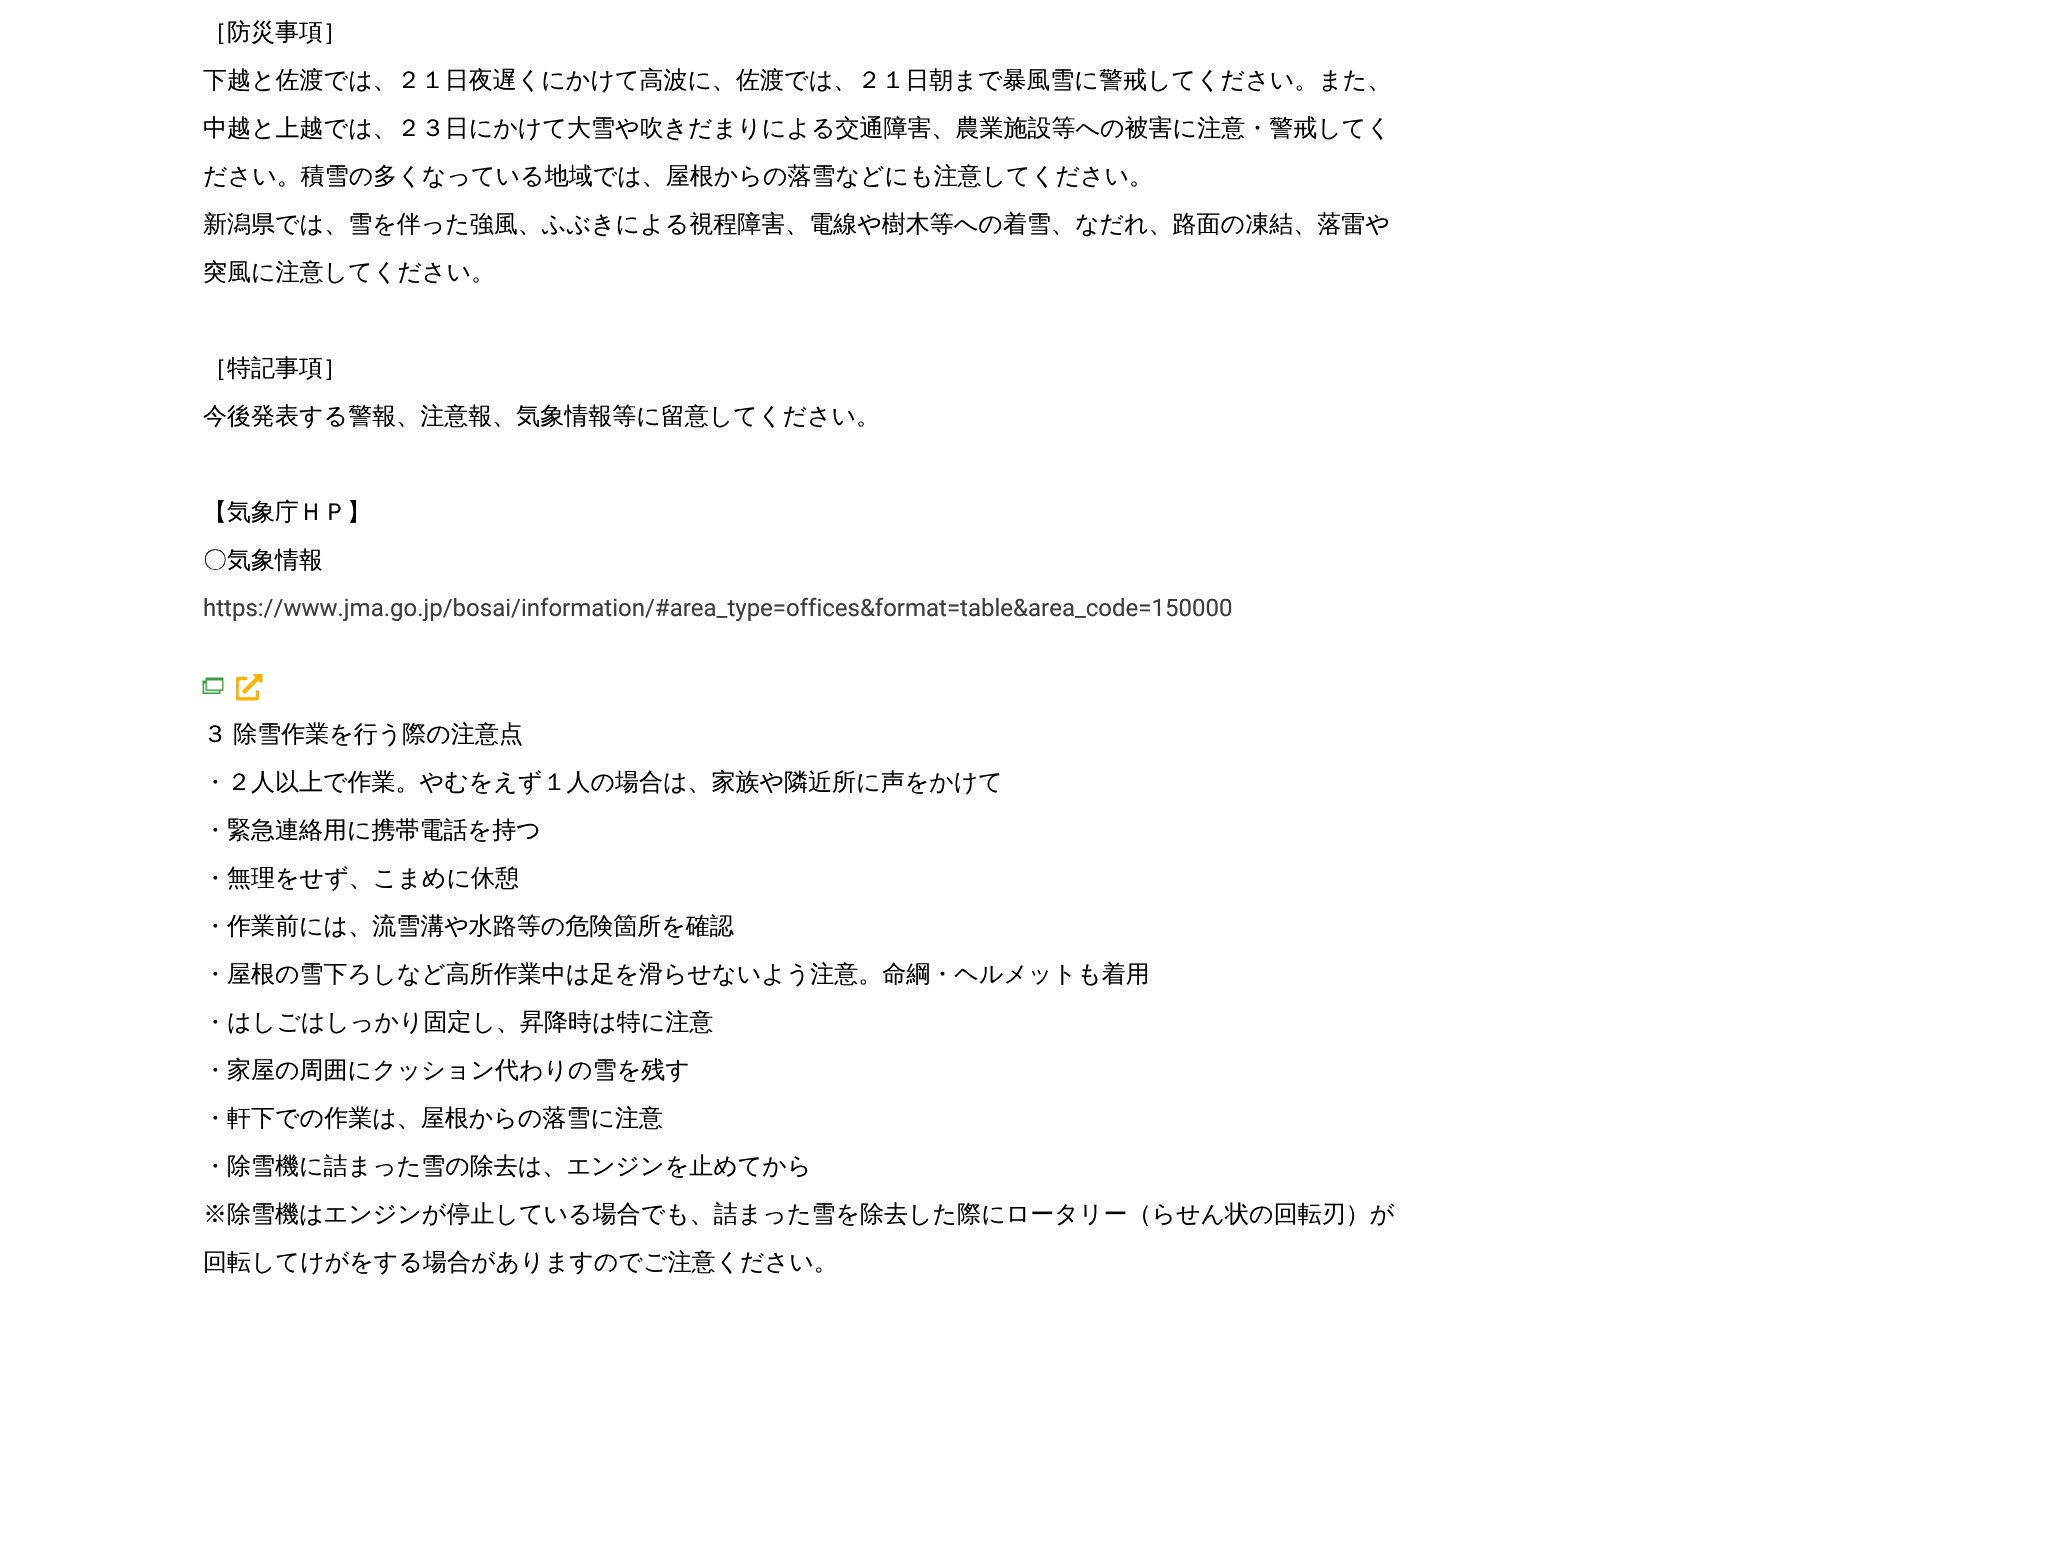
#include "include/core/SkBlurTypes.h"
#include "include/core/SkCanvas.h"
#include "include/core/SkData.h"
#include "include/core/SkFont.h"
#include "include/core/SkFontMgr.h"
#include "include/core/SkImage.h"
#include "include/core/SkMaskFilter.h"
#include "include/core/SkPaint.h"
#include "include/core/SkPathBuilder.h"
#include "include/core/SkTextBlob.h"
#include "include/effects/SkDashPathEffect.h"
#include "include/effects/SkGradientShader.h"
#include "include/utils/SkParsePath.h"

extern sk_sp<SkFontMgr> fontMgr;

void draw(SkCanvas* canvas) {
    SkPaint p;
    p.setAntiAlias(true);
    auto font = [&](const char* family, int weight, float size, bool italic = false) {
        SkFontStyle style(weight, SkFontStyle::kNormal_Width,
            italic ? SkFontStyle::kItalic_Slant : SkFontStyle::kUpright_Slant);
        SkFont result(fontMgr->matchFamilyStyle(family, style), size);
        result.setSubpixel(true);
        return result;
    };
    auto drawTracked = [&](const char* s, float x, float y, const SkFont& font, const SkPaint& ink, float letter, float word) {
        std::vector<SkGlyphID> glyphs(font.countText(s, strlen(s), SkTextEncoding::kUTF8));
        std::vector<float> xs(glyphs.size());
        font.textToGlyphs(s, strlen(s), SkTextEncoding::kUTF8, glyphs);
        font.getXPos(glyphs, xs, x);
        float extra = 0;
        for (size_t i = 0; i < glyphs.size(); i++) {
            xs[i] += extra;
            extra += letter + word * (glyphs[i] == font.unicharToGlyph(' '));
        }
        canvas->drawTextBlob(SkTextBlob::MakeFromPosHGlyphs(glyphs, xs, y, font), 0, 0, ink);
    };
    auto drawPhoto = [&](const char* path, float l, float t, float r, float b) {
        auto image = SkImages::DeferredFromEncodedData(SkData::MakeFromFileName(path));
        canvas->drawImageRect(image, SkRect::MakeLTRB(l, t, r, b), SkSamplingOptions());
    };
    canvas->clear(0xFFFFFFFF);
    auto font1 = font("WenQuanYi Zen Hei", 500, 24);
    p.setColor(0xFF000000);
    {
        const struct { const char* s; float x, y; } items[] = {
            {"［防災事項］", 203, 40},
            {"下越と佐渡では、２１日夜遅くにかけて高波に、佐渡では、２１日朝まで暴風雪に警戒してください。また、", 203, 88},
            {"中越と上越では、２３日にかけて大雪や吹きだまりによる交通障害、農業施設等への被害に注意・警戒してく", 203, 136},
            {"ださい。積雪の多くなっている地域では、屋根からの落雪などにも注意してください。", 203, 184},
            {"新潟県では、雪を伴った強風、ふぶきによる視程障害、電線や樹木等への着雪、なだれ、路面の凍結、落雷や", 203, 232},
            {"突風に注意してください。", 203, 280},
            {"［特記事項］", 203, 376},
            {"今後発表する警報、注意報、気象情報等に留意してください。", 203, 424},
            {"【気象庁ＨＰ】", 203, 520},
            {"〇気象情報", 203, 568},
        };
        for (auto [s, x, y] : items) {
            canvas->drawString(s, x, y, font1, p);
        }
    }
    auto font2 = font("Roboto", 400, 24);
    p.setColor(0xFF3C3C3C);
    canvas->drawString("https://www.jma.go.jp/bosai/information/#area_type=offices&format=table&area_code=150000", 203, 616, font2, p);
    drawPhoto("media/1.png", 202, 677, 224, 694);
    drawPhoto("media/2.png", 236, 674, 263, 701);
    p.setColor(0xFF000000);
    drawTracked("３ 除雪作業を行う際の注意点", 203, 742, font1, p, 0, -1);
    {
        const struct { const char* s; float x, y; } items[] = {
            {"・２人以上で作業。やむをえず１人の場合は、家族や隣近所に声をかけて", 203, 790},
            {"・緊急連絡用に携帯電話を持つ", 203, 838},
            {"・無理をせず、こまめに休憩", 203, 886},
            {"・作業前には、流雪溝や水路等の危険箇所を確認", 203, 934},
            {"・屋根の雪下ろしなど高所作業中は足を滑らせないよう注意。命綱・ヘルメットも着用", 203, 982},
            {"・はしごはしっかり固定し、昇降時は特に注意", 203, 1030},
            {"・家屋の周囲にクッション代わりの雪を残す", 203, 1078},
            {"・軒下での作業は、屋根からの落雪に注意", 203, 1126},
            {"・除雪機に詰まった雪の除去は、エンジンを止めてから", 203, 1174},
            {"※除雪機はエンジンが停止している場合でも、詰まった雪を除去した際にロータリー（らせん状の回転刃）が", 203, 1222},
            {"回転してけがをする場合がありますのでご注意ください。", 203, 1270},
        };
        for (auto [s, x, y] : items) {
            canvas->drawString(s, x, y, font1, p);
        }
    }
}
